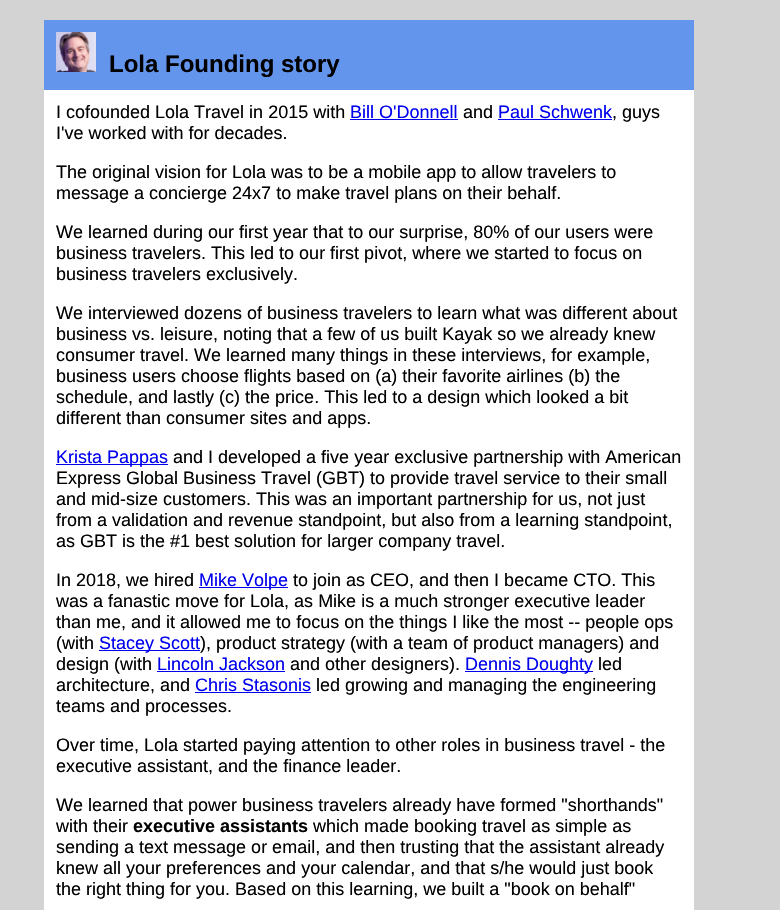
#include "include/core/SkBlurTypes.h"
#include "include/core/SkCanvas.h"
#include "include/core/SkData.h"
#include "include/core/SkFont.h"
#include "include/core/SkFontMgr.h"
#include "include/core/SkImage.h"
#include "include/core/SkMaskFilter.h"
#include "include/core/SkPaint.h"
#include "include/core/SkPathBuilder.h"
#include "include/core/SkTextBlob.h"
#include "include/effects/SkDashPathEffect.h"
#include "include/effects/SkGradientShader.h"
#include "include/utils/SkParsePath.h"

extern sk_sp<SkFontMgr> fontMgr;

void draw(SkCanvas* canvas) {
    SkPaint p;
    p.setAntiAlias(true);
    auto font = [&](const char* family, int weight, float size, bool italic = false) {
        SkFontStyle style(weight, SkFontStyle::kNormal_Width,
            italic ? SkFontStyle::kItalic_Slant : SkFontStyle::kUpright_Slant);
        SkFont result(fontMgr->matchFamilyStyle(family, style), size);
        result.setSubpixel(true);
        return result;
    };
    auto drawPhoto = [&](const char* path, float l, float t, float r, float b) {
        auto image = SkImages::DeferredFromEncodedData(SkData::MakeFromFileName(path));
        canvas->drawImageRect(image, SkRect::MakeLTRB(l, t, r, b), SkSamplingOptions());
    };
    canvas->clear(0xFFD3D3D3);
    p.setColor(0xFF6495ED);
    canvas->drawRect(SkRect::MakeLTRB(44, 20, 694, 90), p);
    drawPhoto("media/1.png", 56, 32, 96, 72);
    auto font1 = font("Liberation Sans", 700, 24);
    p.setColor(0xFF000000);
    canvas->drawString("Lola Founding story", 109, 72, font1, p);
    p.setColor(0xFFFFFFFF);
    canvas->drawRect(SkRect::MakeLTRB(44, 90, 694, 910), p);
    auto font2 = font("Liberation Sans", 400, 18);
    p.setColor(0xFF000000);
    canvas->drawString("I cofounded Lola Travel in 2015 with", 56, 118, font2, p);
    p.setColor(0xFF0000EE);
    canvas->drawString("Bill O'Donnell", 350, 118, font2, p);
    canvas->drawRect(SkRect::MakeLTRB(350, 119, 458, 120), p);
    p.setColor(0xFF000000);
    canvas->drawString("and", 463, 118, font2, p);
    p.setColor(0xFF0000EE);
    canvas->drawString("Paul Schwenk", 498, 118, font2, p);
    canvas->drawRect(SkRect::MakeLTRB(498, 119, 612, 120), p);
    p.setColor(0xFF000000);
    {
        const struct { const char* s; float x, y; } items[] = {
            {", guys", 612, 118},
            {"I've worked with for decades.", 56, 139},
            {"The original vision for Lola was to be a mobile app to allow travelers to", 56, 178},
            {"message a concierge 24x7 to make travel plans on their behalf.", 56, 199},
            {"We learned during our first year that to our surprise, 80% of our users were", 56, 238},
            {"business travelers. This led to our first pivot, where we started to focus on", 56, 259},
            {"business travelers exclusively.", 56, 280},
            {"We interviewed dozens of business travelers to learn what was different about", 56, 319},
            {"business vs. leisure, noting that a few of us built Kayak so we already knew", 56, 340},
            {"consumer travel. We learned many things in these interviews, for example,", 56, 361},
            {"business users choose flights based on (a) their favorite airlines (b) the", 56, 382},
            {"schedule, and lastly (c) the price. This led to a design which looked a bit", 56, 403},
            {"different than consumer sites and apps.", 56, 424},
        };
        for (auto [s, x, y] : items) {
            canvas->drawString(s, x, y, font2, p);
        }
    }
    p.setColor(0xFF0000EE);
    canvas->drawRect(SkRect::MakeLTRB(56, 464, 168, 465), p);
    canvas->drawString("Krista Pappas", 56, 463, font2, p);
    p.setColor(0xFF000000);
    {
        const struct { const char* s; float x, y; } items[] = {
            {"and I developed a five year exclusive partnership with American", 173, 463},
            {"Express Global Business Travel (GBT) to provide travel service to their small", 56, 484},
            {"and mid-size customers. This was an important partnership for us, not just", 56, 505},
            {"from a validation and revenue standpoint, but also from a learning standpoint,", 56, 526},
            {"as GBT is the #1 best solution for larger company travel.", 56, 547},
            {"In 2018, we hired", 56, 586},
        };
        for (auto [s, x, y] : items) {
            canvas->drawString(s, x, y, font2, p);
        }
    }
    p.setColor(0xFF0000EE);
    canvas->drawRect(SkRect::MakeLTRB(199, 587, 288, 588), p);
    canvas->drawString("Mike Volpe", 199, 586, font2, p);
    p.setColor(0xFF000000);
    {
        const struct { const char* s; float x, y; } items[] = {
            {"to join as CEO, and then I became CTO. This", 293, 586},
            {"was a fanastic move for Lola, as Mike is a much stronger executive leader", 56, 607},
            {"than me, and it allowed me to focus on the things I like the most -- people ops", 56, 628},
            {"(with", 56, 649},
        };
        for (auto [s, x, y] : items) {
            canvas->drawString(s, x, y, font2, p);
        }
    }
    p.setColor(0xFF0000EE);
    canvas->drawRect(SkRect::MakeLTRB(99, 650, 200, 651), p);
    canvas->drawString("Stacey Scott", 99, 649, font2, p);
    p.setColor(0xFF000000);
    canvas->drawString("), product strategy (with a team of product managers) and", 200, 649, font2, p);
    canvas->drawString("design (with", 56, 670, font2, p);
    p.setColor(0xFF0000EE);
    canvas->drawString("Lincoln Jackson", 157, 670, font2, p);
    canvas->drawRect(SkRect::MakeLTRB(157, 671, 285, 672), p);
    p.setColor(0xFF000000);
    canvas->drawString("and other designers).", 290, 670, font2, p);
    p.setColor(0xFF0000EE);
    canvas->drawRect(SkRect::MakeLTRB(465, 671, 593, 672), p);
    canvas->drawString("Dennis Doughty", 465, 670, font2, p);
    p.setColor(0xFF000000);
    canvas->drawString("led", 598, 670, font2, p);
    canvas->drawString("architecture, and", 56, 691, font2, p);
    p.setColor(0xFF0000EE);
    canvas->drawString("Chris Stasonis", 195, 691, font2, p);
    canvas->drawRect(SkRect::MakeLTRB(195, 692, 311, 693), p);
    p.setColor(0xFF000000);
    {
        const struct { const char* s; float x, y; } items[] = {
            {"led growing and managing the engineering", 316, 691},
            {"teams and processes.", 56, 712},
            {"Over time, Lola started paying attention to other roles in business travel - the", 56, 751},
            {"executive assistant, and the finance leader.", 56, 772},
            {"We learned that power business travelers already have formed \"shorthands\"", 56, 811},
            {"with their", 56, 832},
        };
        for (auto [s, x, y] : items) {
            canvas->drawString(s, x, y, font2, p);
        }
    }
    auto font3 = font("Liberation Sans", 700, 18);
    canvas->drawString("executive assistants", 133, 832, font3, p);
    {
        const struct { const char* s; float x, y; } items[] = {
            {"which made booking travel as simple as", 313, 832},
            {"sending a text message or email, and then trusting that the assistant already", 56, 853},
            {"knew all your preferences and your calendar, and that s/he would just book", 56, 874},
            {"the right thing for you. Based on this learning, we built a \"book on behalf\"", 56, 895},
        };
        for (auto [s, x, y] : items) {
            canvas->drawString(s, x, y, font2, p);
        }
    }
}
